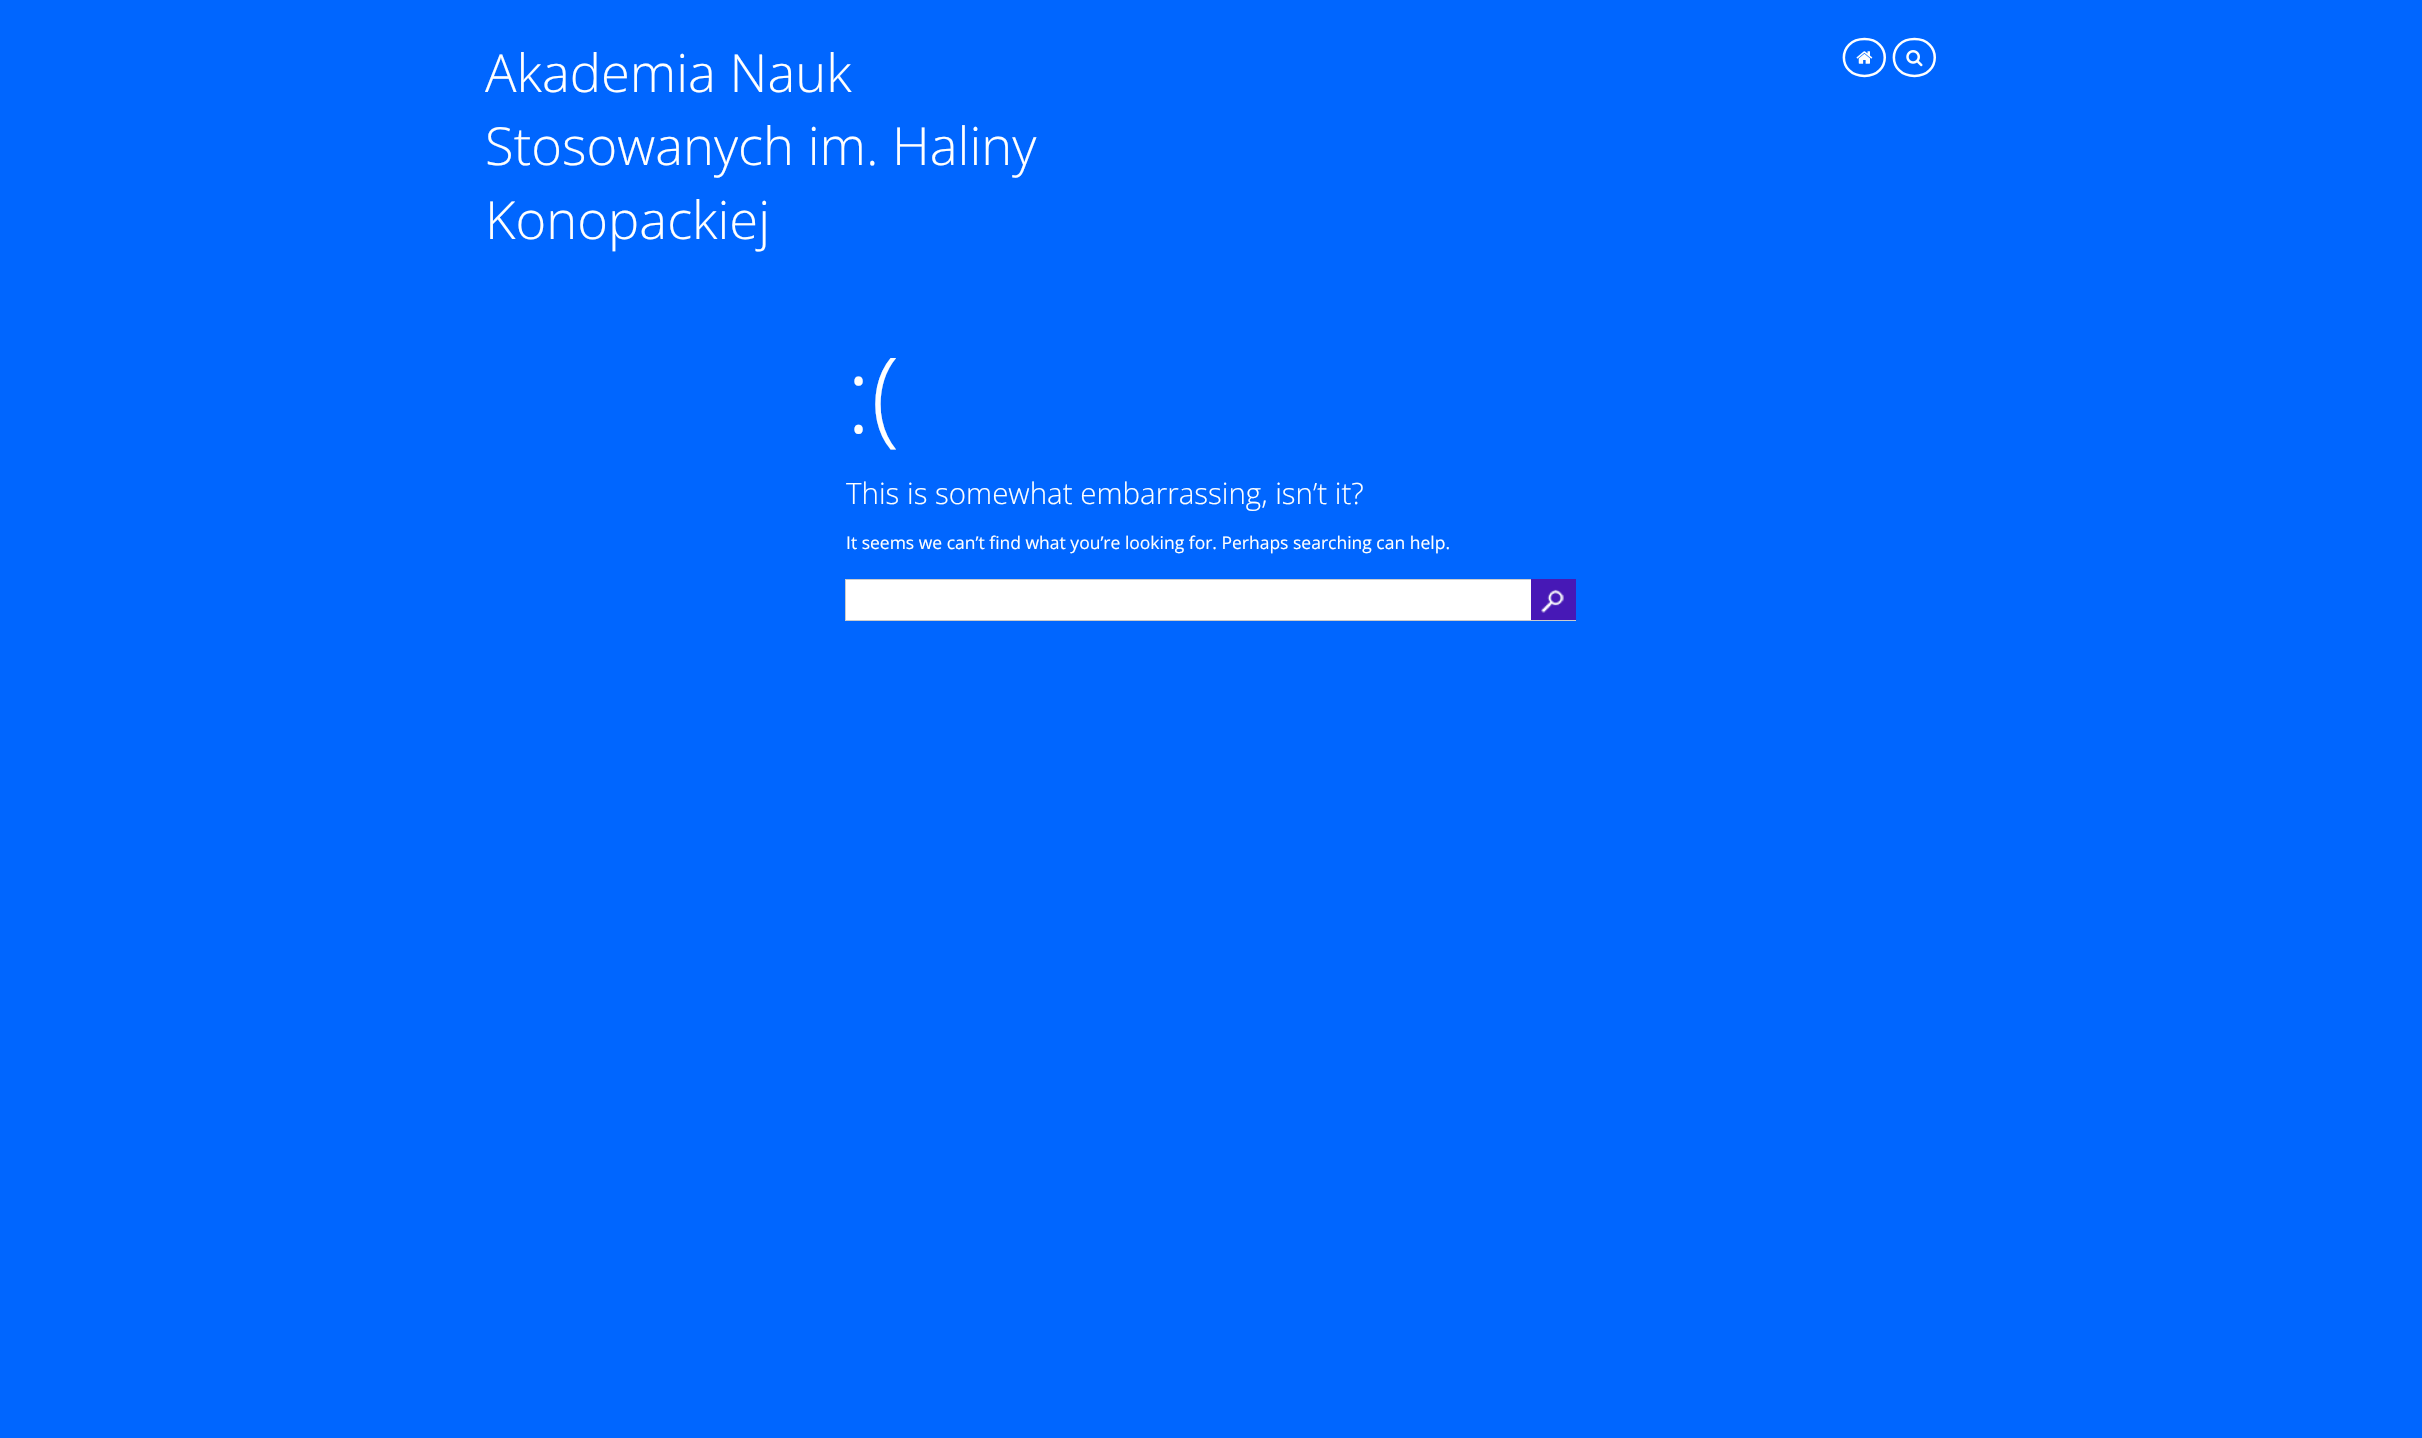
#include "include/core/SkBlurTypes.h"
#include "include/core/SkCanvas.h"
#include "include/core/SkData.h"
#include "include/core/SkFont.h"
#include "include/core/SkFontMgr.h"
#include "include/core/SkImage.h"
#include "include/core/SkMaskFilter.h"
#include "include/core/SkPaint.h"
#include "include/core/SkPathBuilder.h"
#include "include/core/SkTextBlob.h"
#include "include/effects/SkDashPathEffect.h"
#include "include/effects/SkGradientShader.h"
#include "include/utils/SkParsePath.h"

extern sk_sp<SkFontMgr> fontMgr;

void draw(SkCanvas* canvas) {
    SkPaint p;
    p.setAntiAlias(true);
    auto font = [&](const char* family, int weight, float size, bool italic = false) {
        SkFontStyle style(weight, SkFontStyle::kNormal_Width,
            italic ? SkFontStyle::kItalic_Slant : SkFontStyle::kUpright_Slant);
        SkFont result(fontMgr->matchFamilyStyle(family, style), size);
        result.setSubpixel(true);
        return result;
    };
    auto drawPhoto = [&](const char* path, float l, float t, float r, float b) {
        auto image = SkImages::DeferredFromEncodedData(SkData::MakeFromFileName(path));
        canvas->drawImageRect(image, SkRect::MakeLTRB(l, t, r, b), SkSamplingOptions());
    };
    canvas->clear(0xFF0066FF);
    auto font1 = font("Open Sans", 300, 52.5f);
    p.setColor(0xFFFFFFFF);
    {
        const struct { const char* s; float x, y; } items[] = {
            {"Akademia Nauk", 485, 92},
            {"Stosowanych im. Haliny", 485, 165},
            {"Konopackiej", 485, 239},
        };
        for (auto [s, x, y] : items) {
            canvas->drawString(s, x, y, font1, p);
        }
    }
    p.setStyle(SkPaint::kStroke_Style);
    p.setStrokeWidth(2.5f);
    canvas->drawPath(SkPathBuilder().moveTo(1864.5f, 39).cubicTo(1891.5f, 39, 1891.5f, 76, 1864.5f, 76).cubicTo(1837, 76, 1837, 39, 1864.5f, 39).close().detach(), p);
    drawPhoto("media/1.png", 1856, 51, 1873, 64);
    canvas->drawPath(SkPathBuilder().moveTo(1914.5f, 39).cubicTo(1941.5f, 39, 1941.5f, 76, 1914.5f, 76).cubicTo(1887, 76, 1887, 39, 1914.5f, 39).close().detach(), p);
    drawPhoto("media/2.png", 1906, 50, 1923, 67);
    auto font2 = font("Open Sans", 300, 105);
    p.setStyle(SkPaint::kFill_Style);
    canvas->drawString(":(", 846, 433, font2, p);
    auto font3 = font("Open Sans", 300, 29.5f);
    canvas->drawString("This is somewhat embarrassing, isn’t it?", 846, 504, font3, p);
    auto font4 = font("Open Sans", 400, 17.5f);
    canvas->drawString("It seems we can’t find what you’re looking for. Perhaps searching can help.", 846, 549, font4, p);
    canvas->drawRect(SkRect::MakeLTRB(846, 580, 1531, 620), p);
    p.setStyle(SkPaint::kStroke_Style);
    p.setStrokeWidth(1);
    p.setColor(0xFFCCCCCC);
    canvas->drawRect(SkRect::MakeLTRB(845.5f, 579.5f, 1575.5f, 620.5f), p);
    p.setStyle(SkPaint::kFill_Style);
    p.setColor(0xFF4718B6);
    canvas->drawRect(SkRect::MakeLTRB(1531, 579, 1576, 620), p);
    drawPhoto("media/3.png", 1541, 589, 1564, 613);
}
